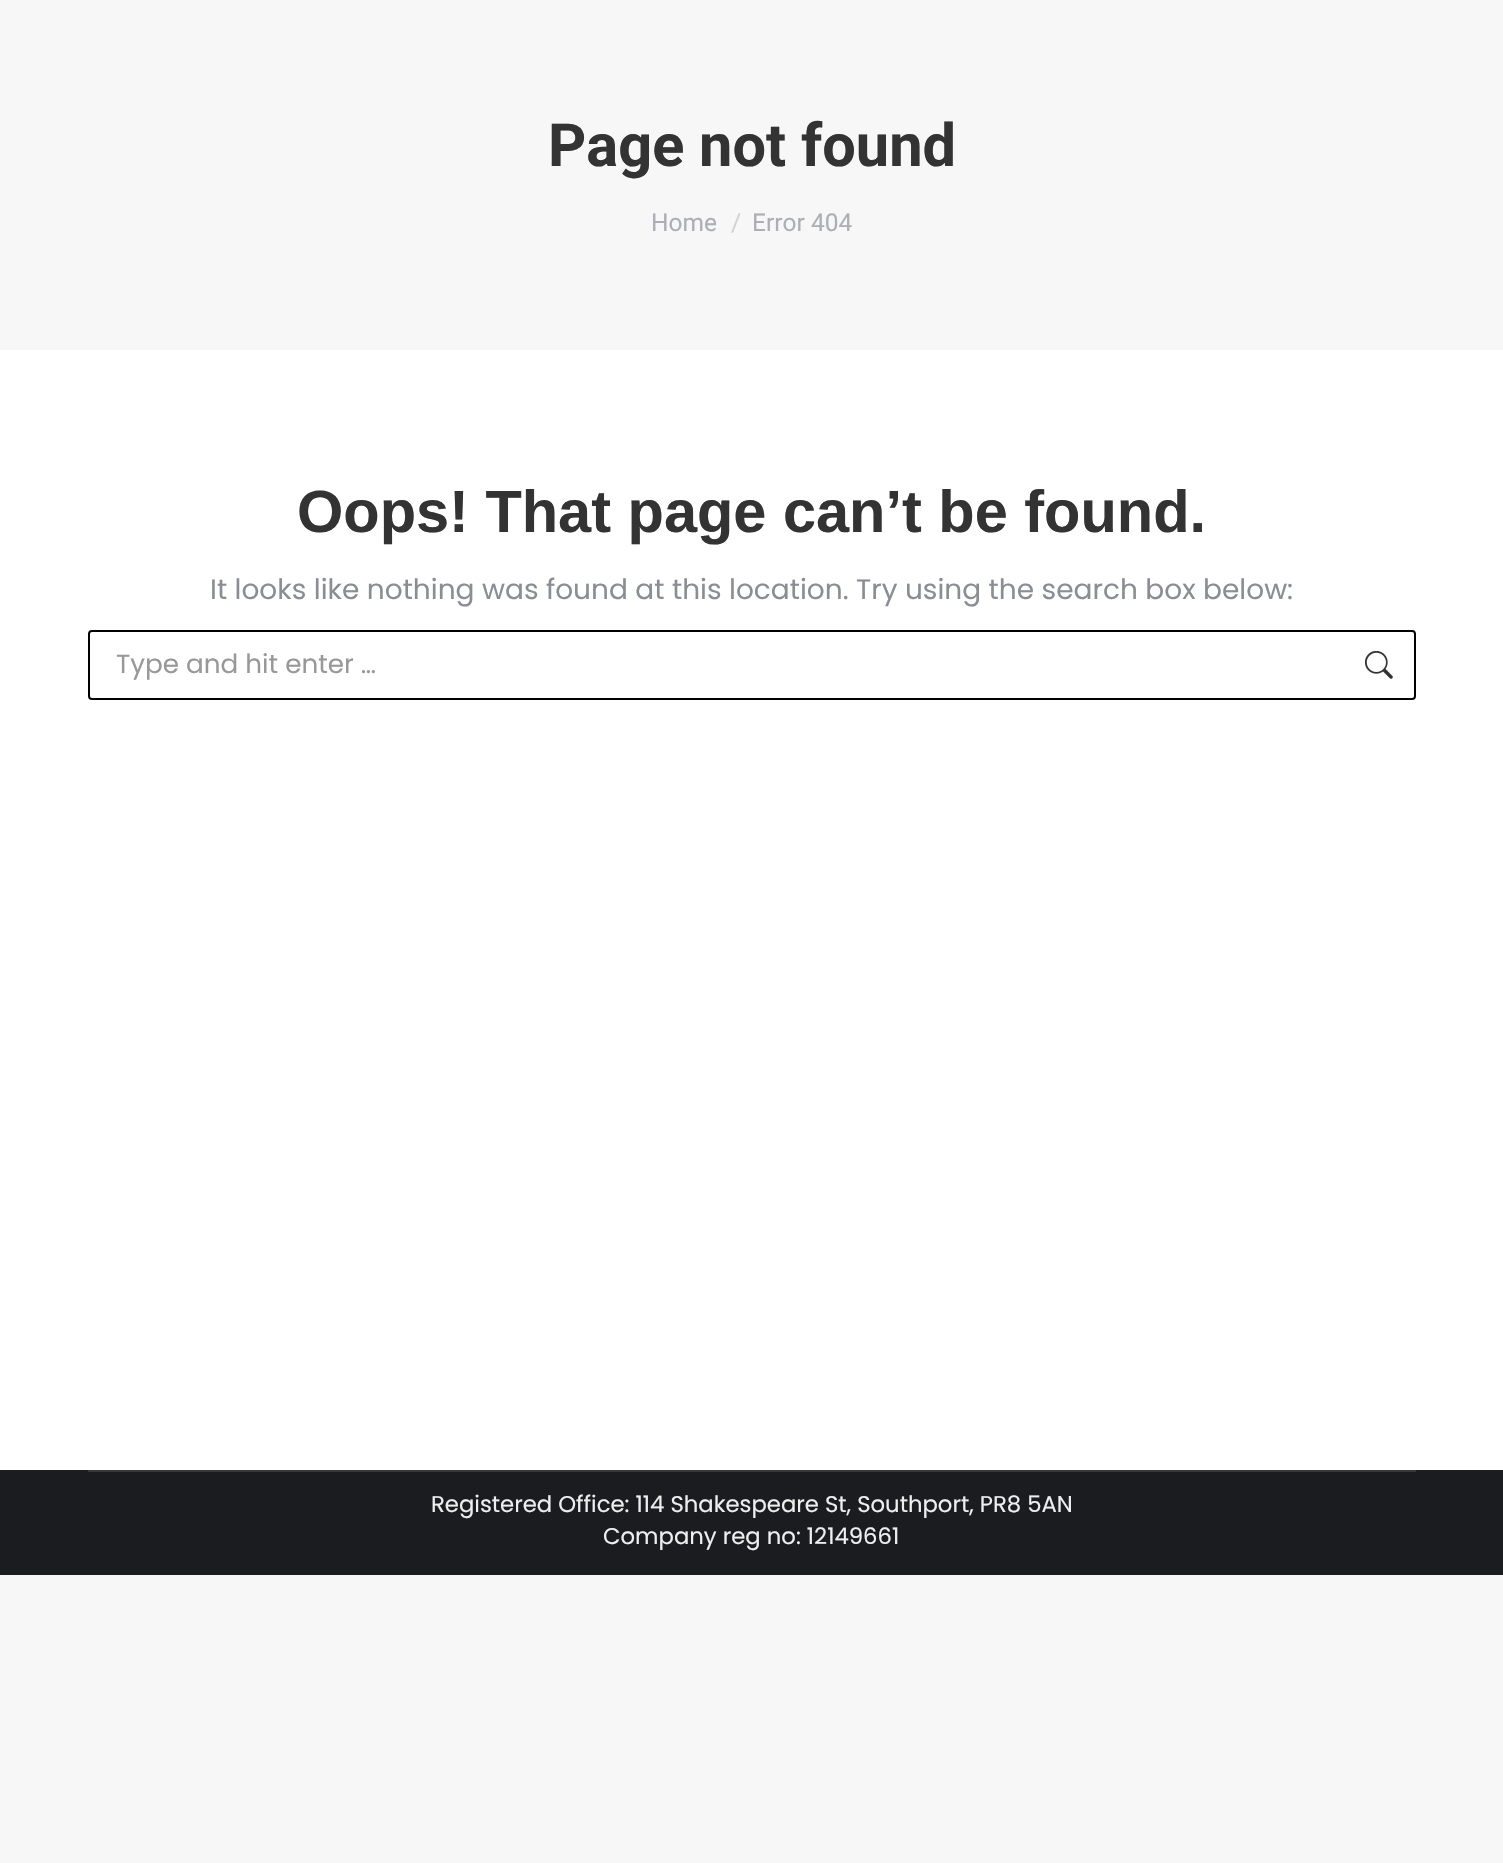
#include "include/core/SkBlurTypes.h"
#include "include/core/SkCanvas.h"
#include "include/core/SkData.h"
#include "include/core/SkFont.h"
#include "include/core/SkFontMgr.h"
#include "include/core/SkImage.h"
#include "include/core/SkMaskFilter.h"
#include "include/core/SkPaint.h"
#include "include/core/SkPathBuilder.h"
#include "include/core/SkTextBlob.h"
#include "include/effects/SkDashPathEffect.h"
#include "include/effects/SkGradientShader.h"
#include "include/utils/SkParsePath.h"

extern sk_sp<SkFontMgr> fontMgr;

void draw(SkCanvas* canvas) {
    SkPaint p;
    p.setAntiAlias(true);
    auto font = [&](const char* family, int weight, float size, bool italic = false) {
        SkFontStyle style(weight, SkFontStyle::kNormal_Width,
            italic ? SkFontStyle::kItalic_Slant : SkFontStyle::kUpright_Slant);
        SkFont result(fontMgr->matchFamilyStyle(family, style), size);
        result.setSubpixel(true);
        return result;
    };
    auto drawPhoto = [&](const char* path, float l, float t, float r, float b) {
        auto image = SkImages::DeferredFromEncodedData(SkData::MakeFromFileName(path));
        canvas->drawImageRect(image, SkRect::MakeLTRB(l, t, r, b), SkSamplingOptions());
    };
    canvas->clear(0xFFF7F7F7);
    p.setColor(0xFFFFFFFF);
    canvas->drawRect(SkRect::MakeLTRB(0, 350, 1503, 1470), p);
    auto font1 = font("Roboto", 700, 59.5f);
    p.setColor(0xFF333333);
    canvas->drawString("Page not found", 548, 166, font1, p);
    auto font2 = font("Roboto", 400, 24.5f);
    p.setColor(0xFFADAFB3);
    canvas->drawString("Home", 651, 231, font2, p);
    p.setColor(0xFFD2D3D5);
    canvas->drawString("/", 731, 231, font2, p);
    p.setColor(0xFFADAFB3);
    canvas->drawString("Error 404", 752, 231, font2, p);
    auto font3 = font("Liberation Sans", 700, 59.5f);
    p.setColor(0xFF333333);
    canvas->drawString("Oops! That page can’t be found.", 297, 532, font3, p);
    auto font4 = font("Poppins", 400, 28);
    p.setColor(0xFF8B8D94);
    canvas->drawString("It looks like nothing was found at this location. Try using the search box below:", 210, 599, font4, p);
    p.setStyle(SkPaint::kStroke_Style);
    p.setStrokeWidth(2);
    p.setColor(0xFF000000);
    canvas->drawRoundRect(SkRect::MakeLTRB(89, 631, 1415, 699), 3, 3, p);
    auto font5 = font("Poppins", 400, 26.25f);
    p.setStyle(SkPaint::kFill_Style);
    p.setColor(0xFF989898);
    canvas->drawString("Type and hit enter …", 116, 673, font5, p);
    drawPhoto("media/1.png", 1365, 651, 1393, 679);
    p.setColor(0xFF1A1C20);
    canvas->drawRect(SkRect::MakeLTRB(0, 1470, 1503, 1575), p);
    p.setColor(0xFF35373B);
    canvas->drawRect(SkRect::MakeLTRB(88, 1470, 1416, 1472), p);
    auto font6 = font("Poppins", 400, 22.75f);
    p.setColor(0xFFEEEEEE);
    canvas->drawString("Registered Office: 114 Shakespeare St, Southport, PR8 5AN", 431, 1512, font6, p);
    canvas->drawString("Company reg no: 12149661", 603, 1544, font6, p);
}
